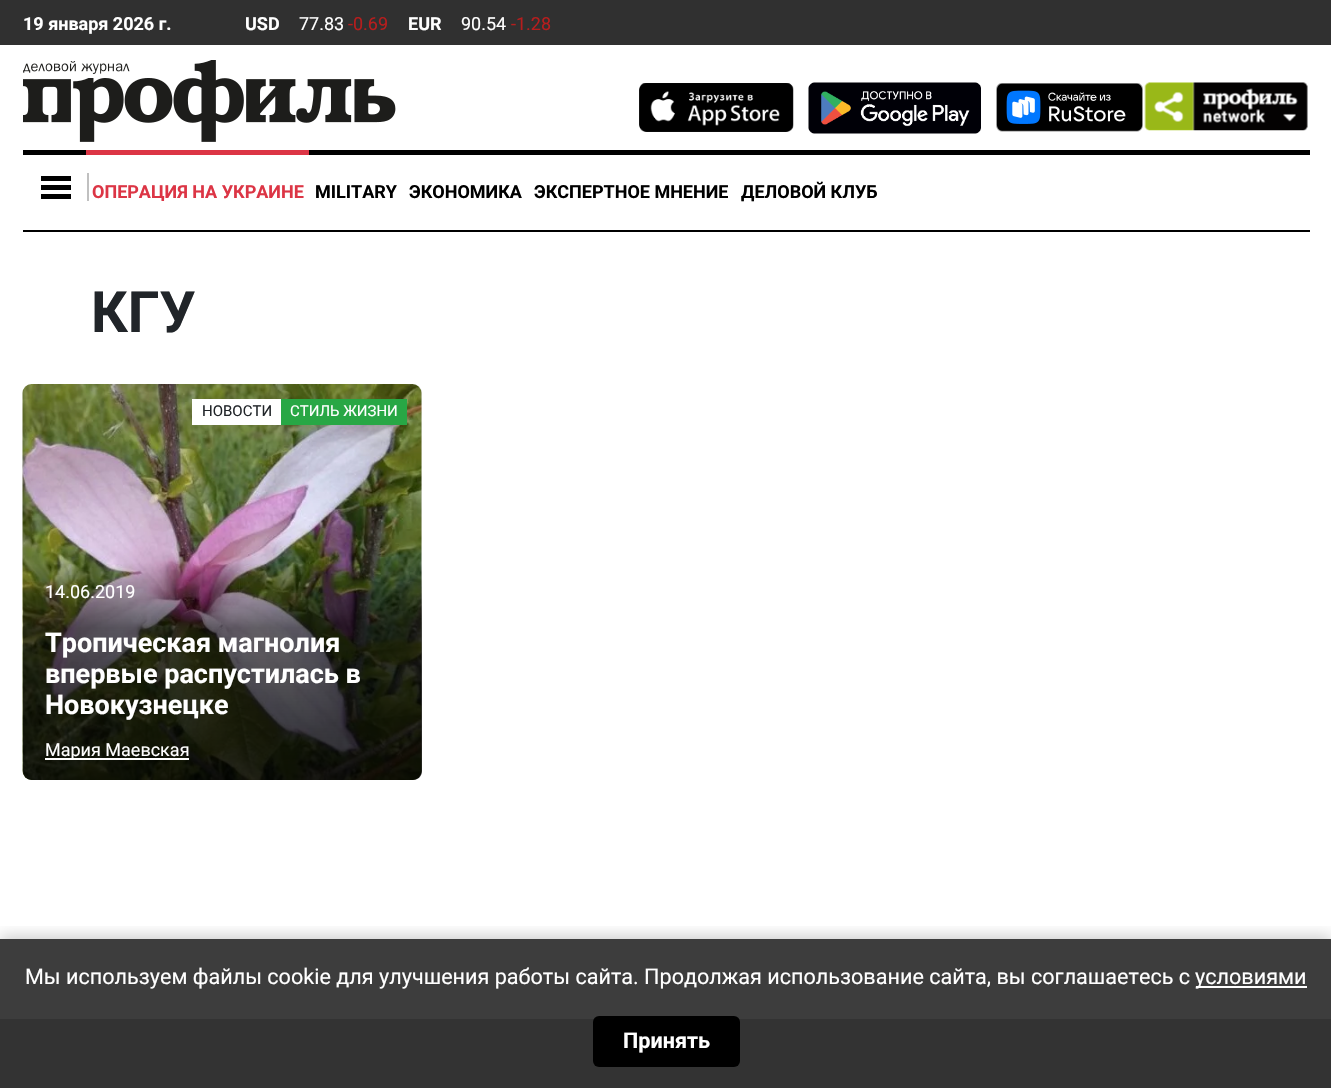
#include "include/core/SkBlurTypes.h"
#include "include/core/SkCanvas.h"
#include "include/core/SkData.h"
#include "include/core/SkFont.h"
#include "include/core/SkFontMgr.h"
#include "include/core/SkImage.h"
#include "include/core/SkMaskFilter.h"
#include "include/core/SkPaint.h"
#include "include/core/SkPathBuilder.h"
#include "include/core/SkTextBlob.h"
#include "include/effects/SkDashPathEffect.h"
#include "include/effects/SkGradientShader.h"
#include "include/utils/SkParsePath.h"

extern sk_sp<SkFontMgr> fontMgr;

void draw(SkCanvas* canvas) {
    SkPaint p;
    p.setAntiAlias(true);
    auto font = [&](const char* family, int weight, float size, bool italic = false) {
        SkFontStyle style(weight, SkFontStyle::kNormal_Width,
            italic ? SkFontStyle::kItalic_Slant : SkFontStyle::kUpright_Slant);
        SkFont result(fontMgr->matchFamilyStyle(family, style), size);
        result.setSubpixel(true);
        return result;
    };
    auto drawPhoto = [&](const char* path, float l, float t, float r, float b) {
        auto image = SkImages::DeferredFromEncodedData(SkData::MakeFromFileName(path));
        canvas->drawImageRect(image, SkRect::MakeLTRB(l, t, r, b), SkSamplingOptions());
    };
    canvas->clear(0xFFFFFFFF);
    p.setColor(0xFF3D3D3D);
    canvas->drawRect(SkRect::MakeLTRB(0, 939, 1331, 1019), p);
    p.setColor(0xFF303030);
    canvas->drawRect(SkRect::MakeLTRB(0, 0, 1331, 45), p);
    auto font1 = font("Roboto", 700, 18);
    p.setColor(0xFFFFFFFF);
    canvas->drawString("19 января 2026 г.", 23, 30, font1, p);
    canvas->drawString("USD", 245, 30, font1, p);
    auto font2 = font("Roboto", 400, 18);
    canvas->drawString("77.83", 299, 30, font2, p);
    p.setColor(0xFFB61D1D);
    canvas->drawString("-0.69", 348, 30, font2, p);
    p.setColor(0xFFFFFFFF);
    canvas->drawString("EUR", 408, 30, font1, p);
    canvas->drawString("90.54", 461, 30, font2, p);
    p.setColor(0xFFB61D1D);
    canvas->drawString("-1.28", 511, 30, font2, p);
    drawPhoto("media/1.png", 23, 60, 396, 142);
    drawPhoto("media/2.png", 639, 83, 794, 132);
    drawPhoto("media/3.png", 808, 82, 981, 134);
    drawPhoto("media/4.png", 996, 83, 1143, 132);
    drawPhoto("media/5.png", 1144, 82, 1308, 131);
    {
        const struct { float l, t, r, b; SkColor color; } items[] = {
            {23, 230, 1310, 232, 0xFF000000},
            {23, 150, 1310, 155, 0xFF000000},
            {41, 185, 71, 190, 0xFF000000},
            {41, 176, 71, 181, 0xFF000000},
            {41, 194, 71, 199, 0xFF000000},
            {87, 173, 89, 201, 0xFFC0C0C0},
            {86, 150, 309, 155, 0xFFDC3545},
        };
        for (auto [l, t, r, b, color] : items) {
            p.setColor(color);
            canvas->drawRect(SkRect::MakeLTRB(l, t, r, b), p);
        }
    }
    canvas->drawString("ОПЕРАЦИЯ НА УКРАИНЕ", 92, 198, font1, p);
    p.setColor(0xFF000000);
    {
        const struct { const char* s; float x, y; } items[] = {
            {"MILITARY", 315, 198},
            {"ЭКОНОМИКА", 409, 198},
            {"ЭКСПЕРТНОЕ МНЕНИЕ", 534, 198},
            {"ДЕЛОВОЙ КЛУБ", 741, 198},
        };
        for (auto [s, x, y] : items) {
            canvas->drawString(s, x, y, font1, p);
        }
    }
    auto font3 = font("Roboto", 700, 57);
    p.setColor(0xFF212529);
    canvas->drawString("КГУ", 91, 332, font3, p);
    p.setColor(0xFFECECEC);
    canvas->drawRoundRect(SkRect::MakeLTRB(23, 384, 422, 780), 9, 9, p);
    drawPhoto("media/6.png", 22, 384, 422, 780);
    p.setColor(0xFFFFFFFF);
    canvas->drawRect(SkRect::MakeLTRB(192, 399, 281, 425), p);
    auto font4 = font("Roboto", 400, 15);
    p.setColor(0xFF212529);
    canvas->drawString("НОВОСТИ", 202, 416, font4, p);
    p.setColor(0xFF28A745);
    canvas->drawRect(SkRect::MakeLTRB(281, 399, 407, 425), p);
    p.setColor(0xFFFFFFFF);
    canvas->drawString("СТИЛЬ ЖИЗНИ", 290, 416, font4, p);
    {
        const SkColor colors[] = {0x00000000, 0x99000000, 0xCC000000};
        const float stops[] = {0, 0.3f, 1};
        const SkPoint ends[] = {{222, 563}, {222, 780}};
        p.setShader(SkGradientShader::MakeLinear(ends, colors, stops, 3, SkTileMode::kClamp));
        p.setAlpha(255);
    }
    canvas->drawPath(SkPathBuilder().moveTo(23, 563).lineTo(422, 563).lineTo(422, 771).cubicTo(422, 776, 418, 780, 413, 780).lineTo(32, 780).cubicTo(27, 780, 23, 776, 23, 771).close().detach(), p);
    p.setShader(nullptr);
    p.setColor(0xFFFFFFFF);
    canvas->drawString("14.06.2019", 45, 598, font2, p);
    auto font5 = font("Roboto", 700, 27);
    {
        const struct { const char* s; float x, y; } items[] = {
            {"Тропическая магнолия", 45, 652},
            {"впервые распустилась в", 45, 683},
            {"Новокузнецке", 45, 714},
        };
        for (auto [s, x, y] : items) {
            canvas->drawString(s, x, y, font5, p);
        }
    }
    canvas->drawRect(SkRect::MakeLTRB(45, 758, 189, 760), p);
    canvas->drawString("Мария Маевская", 45, 756, font2, p);
    p.setColor(0xFF333333);
    canvas->drawRect(SkRect::MakeLTRB(0, 1019, 1331, 1088), p);
    canvas->save();
    canvas->clipRect(SkRect::MakeLTRB(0, 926, 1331, 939));
    p.setColor(0x33000000);
    p.setMaskFilter(SkMaskFilter::MakeBlur(kNormal_SkBlurStyle, 7.5f));
    canvas->drawRect(SkRect::MakeLTRB(0, 936, 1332, 1086), p);
    p.setMaskFilter(nullptr);
    canvas->restore();
    auto font6 = font("Roboto", 400, 21.6f);
    p.setColor(0xFFFFFFFF);
    canvas->drawString("Мы используем файлы cookie для улучшения работы сайта. Продолжая использование сайта, вы соглашаетесь с", 25, 984, font6, p);
    canvas->drawRect(SkRect::MakeLTRB(1196, 986, 1307, 988), p);
    canvas->drawString("условиями", 1195, 984, font6, p);
    p.setColor(0xFF000000);
    canvas->drawRoundRect(SkRect::MakeLTRB(593, 1016, 740, 1067), 6, 6, p);
    auto font7 = font("Roboto", 700, 21.6f);
    p.setColor(0xFFFFFFFF);
    canvas->drawString("Принять", 623, 1048, font7, p);
}
